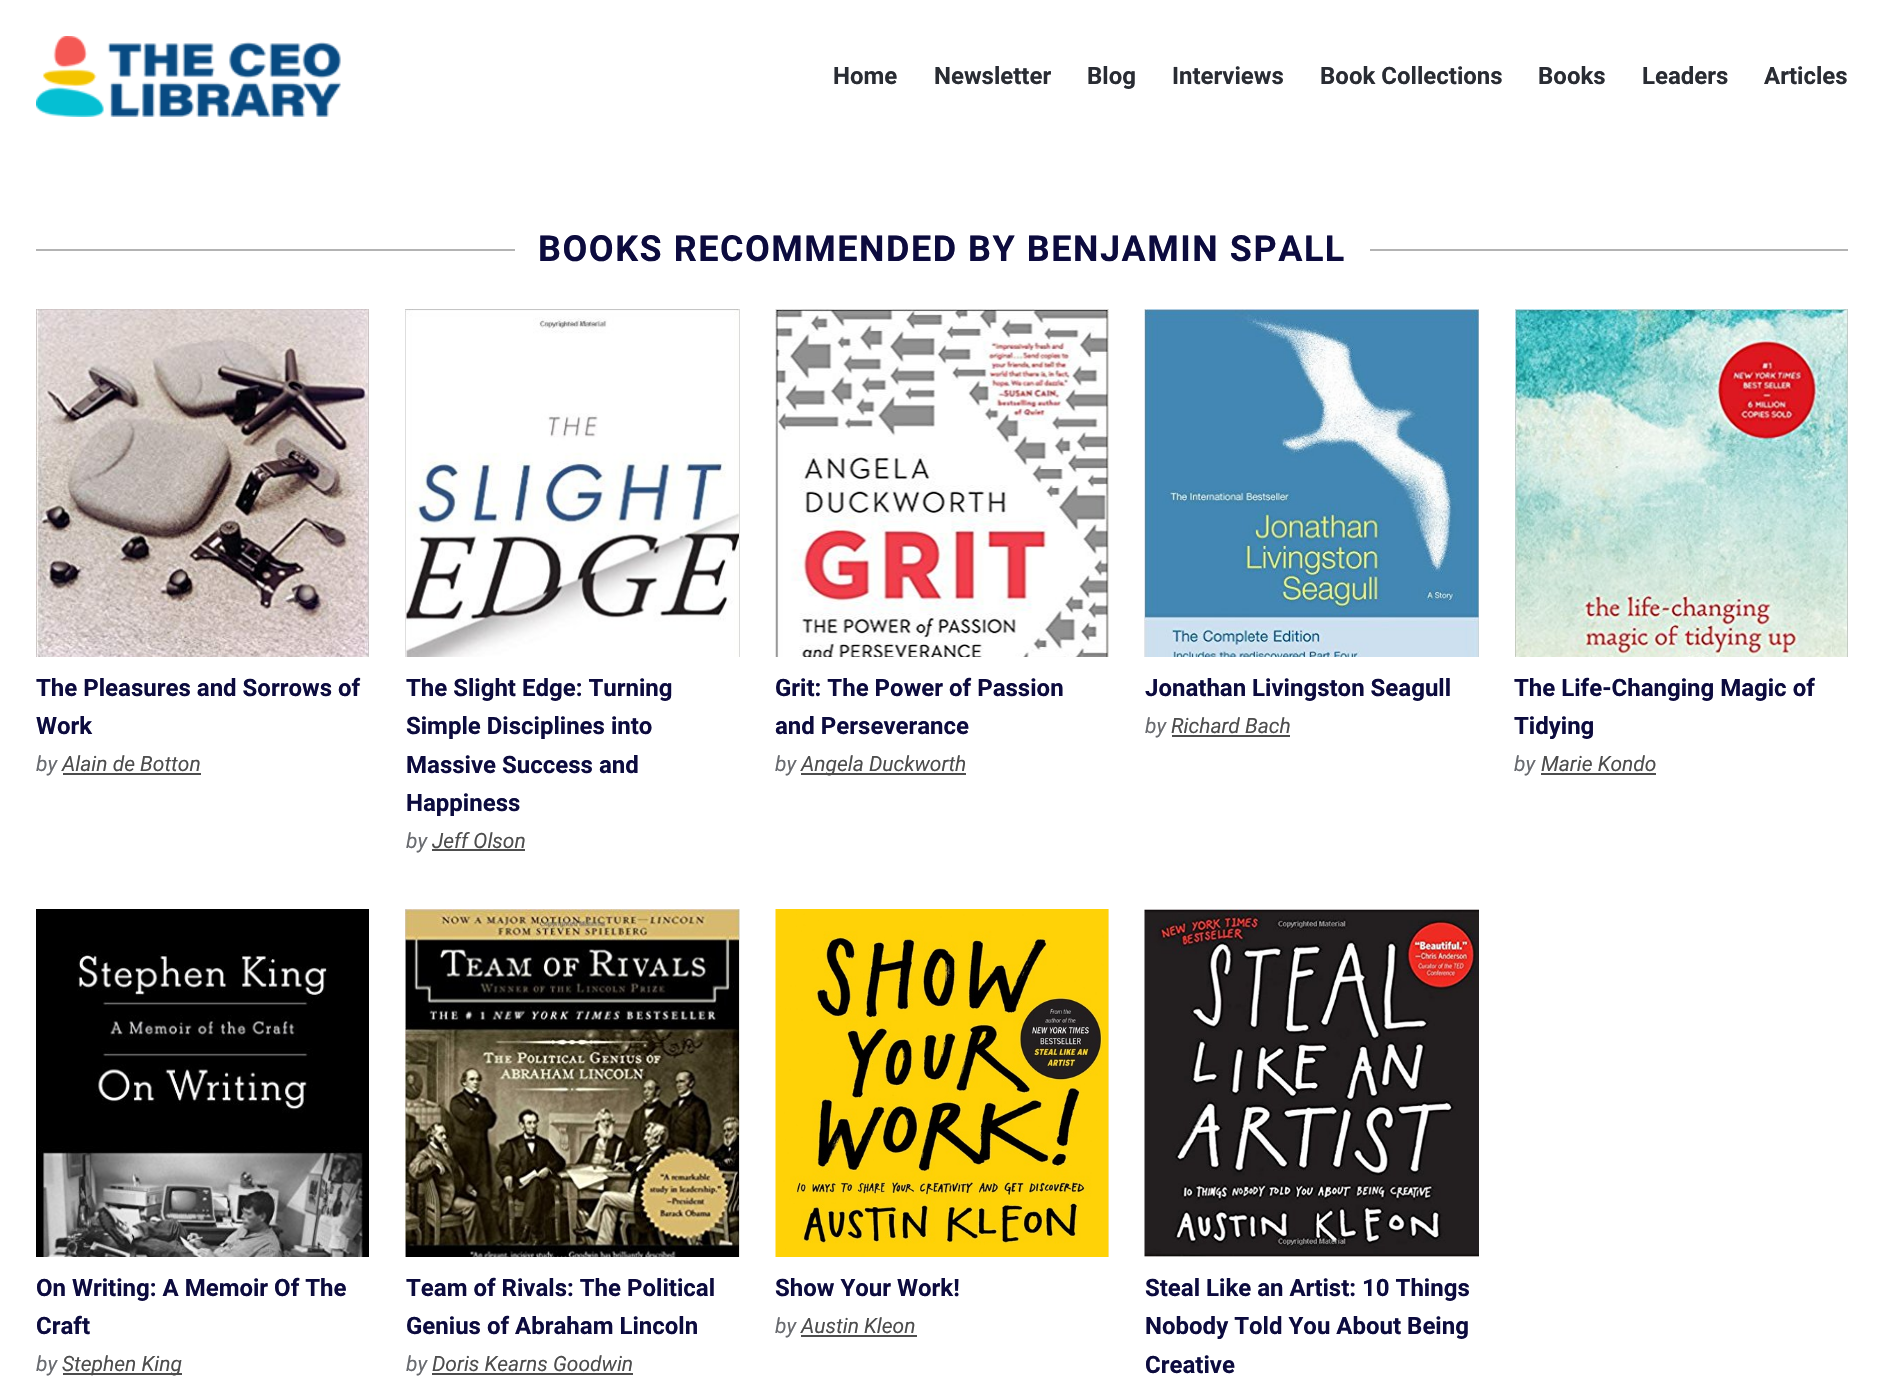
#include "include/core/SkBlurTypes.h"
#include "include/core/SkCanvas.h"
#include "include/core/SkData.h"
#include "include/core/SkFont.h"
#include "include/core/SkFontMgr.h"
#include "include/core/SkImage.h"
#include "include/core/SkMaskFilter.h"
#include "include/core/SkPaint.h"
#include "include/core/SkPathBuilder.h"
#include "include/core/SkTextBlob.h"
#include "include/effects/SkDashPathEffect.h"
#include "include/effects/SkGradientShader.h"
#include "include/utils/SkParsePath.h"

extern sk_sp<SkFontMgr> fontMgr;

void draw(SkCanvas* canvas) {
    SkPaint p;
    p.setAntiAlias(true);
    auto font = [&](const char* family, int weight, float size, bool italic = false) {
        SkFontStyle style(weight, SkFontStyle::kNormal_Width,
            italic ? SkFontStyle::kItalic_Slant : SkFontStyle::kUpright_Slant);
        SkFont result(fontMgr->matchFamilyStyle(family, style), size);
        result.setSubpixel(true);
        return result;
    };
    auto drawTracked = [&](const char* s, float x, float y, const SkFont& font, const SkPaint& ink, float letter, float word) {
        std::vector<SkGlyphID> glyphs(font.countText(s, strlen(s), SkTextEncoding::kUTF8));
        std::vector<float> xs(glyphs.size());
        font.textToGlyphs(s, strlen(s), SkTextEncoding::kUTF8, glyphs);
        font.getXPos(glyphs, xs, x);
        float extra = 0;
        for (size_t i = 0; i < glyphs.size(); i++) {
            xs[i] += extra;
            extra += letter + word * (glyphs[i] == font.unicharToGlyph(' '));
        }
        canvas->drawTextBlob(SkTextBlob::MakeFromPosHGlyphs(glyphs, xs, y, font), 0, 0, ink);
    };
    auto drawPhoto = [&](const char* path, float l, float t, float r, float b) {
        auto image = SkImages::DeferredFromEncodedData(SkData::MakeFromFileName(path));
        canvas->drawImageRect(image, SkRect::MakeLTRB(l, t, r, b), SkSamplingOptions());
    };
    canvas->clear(0xFFFFFFFF);
    drawPhoto("media/1.png", 36, 36, 341, 117);
    auto font1 = font("Roboto", 700, 24);
    p.setColor(0xFF292C33);
    {
        const struct { const char* s; float x, y; } items[] = {
            {"Home", 833, 84},
            {"Newsletter", 934, 84},
            {"Blog", 1087, 84},
            {"Interviews", 1172, 84},
            {"Book Collections", 1320, 84},
            {"Books", 1538, 84},
            {"Leaders", 1642, 84},
            {"Articles", 1764, 84},
        };
        for (auto [s, x, y] : items) {
            canvas->drawString(s, x, y, font1, p);
        }
    }
    p.setColor(0xFFB3B3B3);
    canvas->drawRect(SkRect::MakeLTRB(36, 249, 1848, 251), p);
    p.setColor(0xFFFFFFFF);
    canvas->drawRect(SkRect::MakeLTRB(515, 249, 1370, 251), p);
    auto font2 = font("Roboto", 700, 36);
    p.setColor(0xFF0C0B3E);
    drawTracked("BOOKS RECOMMENDED BY BENJAMIN SPALL", 538, 261, font2, p, 1.5f, 0);
    drawPhoto("media/2.png", 36, 309, 369, 657);
    canvas->drawString("The Pleasures and Sorrows of", 36, 696, font1, p);
    canvas->drawString("Work", 36, 734, font1, p);
    auto font3 = font("Roboto", 400, 21, true);
    p.setColor(0xFF696B70);
    canvas->drawString("by", 36, 771, font3, p);
    p.setColor(0xFF4D4D4D);
    canvas->drawString("Alain de Botton", 62, 771, font3, p);
    canvas->drawRect(SkRect::MakeLTRB(63, 773, 201, 775), p);
    p.setColor(0xFFF1F1F1);
    canvas->drawRect(SkRect::MakeLTRB(739, 309, 740, 657), p);
    drawPhoto("media/3.png", 405, 309, 740, 657);
    p.setColor(0xFF0C0B3E);
    {
        const struct { const char* s; float x, y; } items[] = {
            {"The Slight Edge: Turning", 406, 696},
            {"Simple Disciplines into", 406, 734},
            {"Massive Success and", 406, 773},
            {"Happiness", 406, 811},
        };
        for (auto [s, x, y] : items) {
            canvas->drawString(s, x, y, font1, p);
        }
    }
    p.setColor(0xFF696B70);
    canvas->drawString("by", 406, 848, font3, p);
    p.setColor(0xFF4D4D4D);
    canvas->drawString("Jeff Olson", 432, 848, font3, p);
    canvas->drawRect(SkRect::MakeLTRB(432, 849, 525, 851), p);
    p.setColor(0xFFF1F1F1);
    canvas->drawRect(SkRect::MakeLTRB(1108, 309, 1109, 657), p);
    drawPhoto("media/4.png", 775, 309, 1109, 657);
    p.setColor(0xFF0C0B3E);
    canvas->drawString("Grit: The Power of Passion", 775, 696, font1, p);
    canvas->drawString("and Perseverance", 775, 734, font1, p);
    p.setColor(0xFF696B70);
    canvas->drawString("by", 775, 771, font3, p);
    p.setColor(0xFF4D4D4D);
    canvas->drawRect(SkRect::MakeLTRB(801, 773, 966, 775), p);
    canvas->drawString("Angela Duckworth", 801, 771, font3, p);
    drawPhoto("media/5.png", 1144, 309, 1479, 657);
    p.setColor(0xFF0C0B3E);
    canvas->drawString("Jonathan Livingston Seagull", 1145, 696, font1, p);
    p.setColor(0xFF696B70);
    canvas->drawString("by", 1145, 733, font3, p);
    p.setColor(0xFF4D4D4D);
    canvas->drawString("Richard Bach", 1171, 733, font3, p);
    canvas->drawRect(SkRect::MakeLTRB(1172, 735, 1290, 737), p);
    drawPhoto("media/6.png", 1515, 309, 1848, 657);
    p.setColor(0xFF0C0B3E);
    canvas->drawString("The Life-Changing Magic of", 1514, 696, font1, p);
    canvas->drawString("Tidying", 1514, 734, font1, p);
    p.setColor(0xFF696B70);
    canvas->drawString("by", 1514, 771, font3, p);
    p.setColor(0xFF4D4D4D);
    canvas->drawString("Marie Kondo", 1541, 771, font3, p);
    canvas->drawRect(SkRect::MakeLTRB(1541, 773, 1656, 775), p);
    drawPhoto("media/7.png", 36, 909, 369, 1257);
    p.setColor(0xFF0C0B3E);
    canvas->drawString("On Writing: A Memoir Of The", 36, 1296, font1, p);
    canvas->drawString("Craft", 36, 1334, font1, p);
    p.setColor(0xFF696B70);
    canvas->drawString("by", 36, 1371, font3, p);
    p.setColor(0xFF4D4D4D);
    canvas->drawRect(SkRect::MakeLTRB(63, 1373, 182, 1375), p);
    canvas->drawString("Stephen King", 62, 1371, font3, p);
    p.setColor(0xFFF1F1F1);
    canvas->drawRect(SkRect::MakeLTRB(739, 909, 740, 1257), p);
    drawPhoto("media/8.png", 405, 909, 740, 1257);
    p.setColor(0xFF0C0B3E);
    canvas->drawString("Team of Rivals: The Political", 406, 1296, font1, p);
    canvas->drawString("Genius of Abraham Lincoln", 406, 1334, font1, p);
    p.setColor(0xFF696B70);
    canvas->drawString("by", 406, 1371, font3, p);
    p.setColor(0xFF4D4D4D);
    canvas->drawString("Doris Kearns Goodwin", 432, 1371, font3, p);
    canvas->drawRect(SkRect::MakeLTRB(432, 1373, 633, 1375), p);
    p.setColor(0xFFF1F1F1);
    canvas->drawRect(SkRect::MakeLTRB(1108, 909, 1109, 1257), p);
    drawPhoto("media/9.png", 775, 909, 1109, 1257);
    p.setColor(0xFF0C0B3E);
    canvas->drawString("Show Your Work!", 775, 1296, font1, p);
    p.setColor(0xFF696B70);
    canvas->drawString("by", 775, 1333, font3, p);
    p.setColor(0xFF4D4D4D);
    canvas->drawString("Austin Kleon", 801, 1333, font3, p);
    canvas->drawRect(SkRect::MakeLTRB(801, 1335, 917, 1337), p);
    drawPhoto("media/10.png", 1144, 909, 1479, 1257);
    p.setColor(0xFF0C0B3E);
    {
        const struct { const char* s; float x, y; } items[] = {
            {"Steal Like an Artist: 10 Things", 1145, 1296},
            {"Nobody Told You About Being", 1145, 1334},
            {"Creative", 1145, 1373},
        };
        for (auto [s, x, y] : items) {
            canvas->drawString(s, x, y, font1, p);
        }
    }
}
